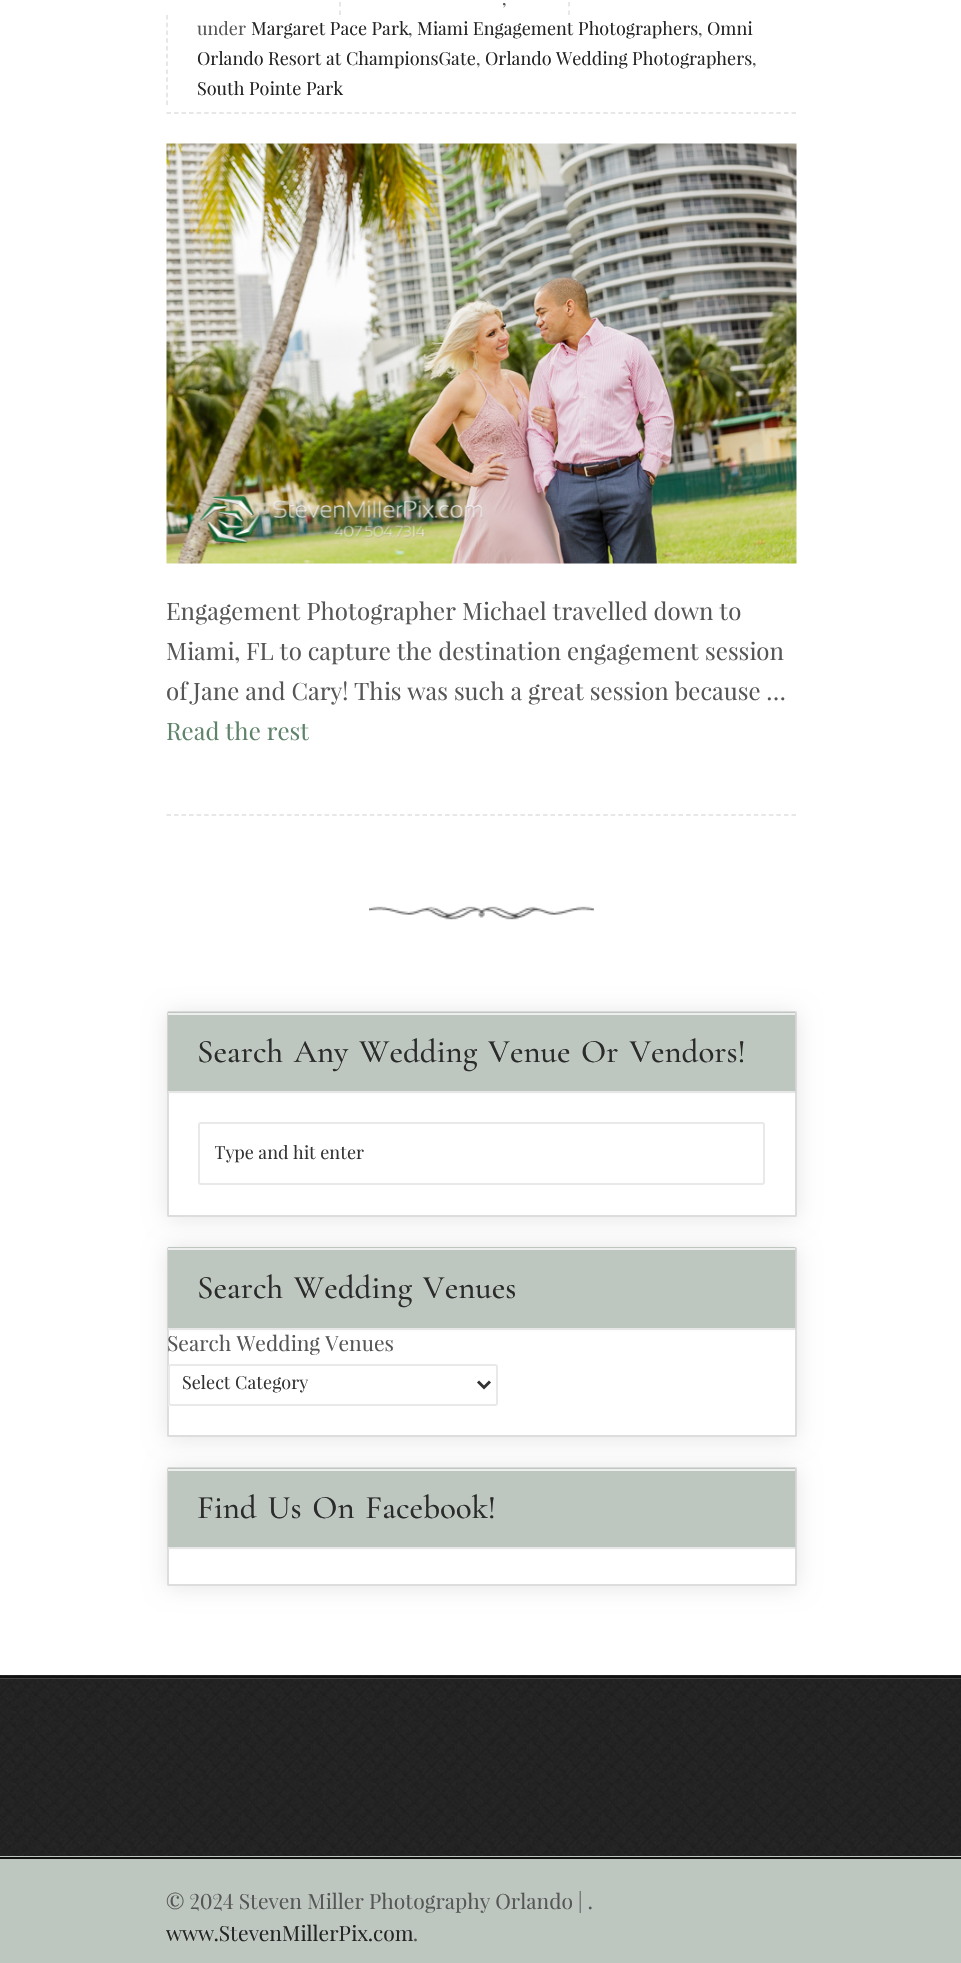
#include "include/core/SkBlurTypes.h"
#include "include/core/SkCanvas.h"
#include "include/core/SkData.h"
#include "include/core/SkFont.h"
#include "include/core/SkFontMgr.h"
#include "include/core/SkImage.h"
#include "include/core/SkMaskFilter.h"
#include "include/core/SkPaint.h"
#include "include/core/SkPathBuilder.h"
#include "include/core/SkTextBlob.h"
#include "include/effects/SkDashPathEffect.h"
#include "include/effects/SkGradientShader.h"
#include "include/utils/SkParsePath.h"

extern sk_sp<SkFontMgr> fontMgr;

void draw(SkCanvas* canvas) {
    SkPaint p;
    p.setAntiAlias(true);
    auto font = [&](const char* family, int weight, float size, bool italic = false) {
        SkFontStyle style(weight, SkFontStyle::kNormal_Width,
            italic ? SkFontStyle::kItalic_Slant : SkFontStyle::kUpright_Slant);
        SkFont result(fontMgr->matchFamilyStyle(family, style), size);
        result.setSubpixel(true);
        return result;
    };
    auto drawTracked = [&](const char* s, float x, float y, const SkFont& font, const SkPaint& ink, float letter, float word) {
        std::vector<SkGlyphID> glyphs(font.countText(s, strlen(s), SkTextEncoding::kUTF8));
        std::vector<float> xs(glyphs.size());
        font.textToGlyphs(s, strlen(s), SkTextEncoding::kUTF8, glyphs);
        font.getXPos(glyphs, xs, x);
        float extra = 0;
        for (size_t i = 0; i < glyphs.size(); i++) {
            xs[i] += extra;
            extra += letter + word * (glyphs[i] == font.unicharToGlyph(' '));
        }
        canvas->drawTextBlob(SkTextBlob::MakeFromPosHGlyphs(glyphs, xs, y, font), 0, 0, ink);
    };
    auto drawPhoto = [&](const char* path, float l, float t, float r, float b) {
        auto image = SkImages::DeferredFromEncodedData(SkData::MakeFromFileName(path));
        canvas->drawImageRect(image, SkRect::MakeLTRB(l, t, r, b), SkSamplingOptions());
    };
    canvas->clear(0xFFFFFFFF);
    p.setStyle(SkPaint::kStroke_Style);
    p.setStrokeWidth(1.5f);
    p.setColor(0xFFE0E0E0);
    p.setPathEffect(SkDashPathEffect::Make({{4.5f, 3.03f}}, 0));
    canvas->drawPath(SkPathBuilder().moveTo(166.5f, 113).lineTo(796.5f, 113).detach(), p);
    p.setPathEffect(nullptr);
    p.setPathEffect(SkDashPathEffect::Make({{4.5f, 4}}, 0));
    canvas->drawPath(SkPathBuilder().moveTo(340, -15).lineTo(340, 15).detach(), p);
    p.setPathEffect(nullptr);
    auto font1 = font("Playfair Display", 400, 18);
    p.setStyle(SkPaint::kFill_Style);
    p.setColor(0xFF565656);
    canvas->drawString(",", 502, 5, font1, p);
    p.setStyle(SkPaint::kStroke_Style);
    p.setColor(0xFFE0E0E0);
    p.setPathEffect(SkDashPathEffect::Make({{4.5f, 4}}, 0));
    canvas->drawPath(SkPathBuilder().moveTo(569, -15).lineTo(569, 15).detach(), p);
    p.setPathEffect(nullptr);
    p.setPathEffect(SkDashPathEffect::Make({{4.5f, 3.27f}}, 0));
    canvas->drawPath(SkPathBuilder().moveTo(167, 15).lineTo(167, 105).detach(), p);
    p.setPathEffect(nullptr);
    p.setStyle(SkPaint::kFill_Style);
    p.setColor(0xFF565656);
    canvas->drawString("under", 197, 35, font1, p);
    p.setColor(0xFF242424);
    canvas->drawString("Margaret Pace Park", 251, 35, font1, p);
    p.setColor(0xFF565656);
    canvas->drawString(",", 408, 35, font1, p);
    p.setColor(0xFF242424);
    canvas->drawString("Miami Engagement Photographers", 417, 35, font1, p);
    p.setColor(0xFF565656);
    canvas->drawString(",", 698, 35, font1, p);
    p.setColor(0xFF242424);
    canvas->drawString("Omni", 707, 35, font1, p);
    canvas->drawString("Orlando Resort at ChampionsGate", 197, 65, font1, p);
    p.setColor(0xFF565656);
    canvas->drawString(",", 476, 65, font1, p);
    p.setColor(0xFF242424);
    canvas->drawString("Orlando Wedding Photographers", 485, 65, font1, p);
    p.setColor(0xFF565656);
    canvas->drawString(",", 752, 65, font1, p);
    p.setColor(0xFF242424);
    canvas->drawString("South Pointe Park", 197, 95, font1, p);
    drawPhoto("media/1.png", 166, 143, 797, 564);
    auto font2 = font("Playfair Display", 400, 24);
    p.setColor(0xFF565656);
    {
        const struct { const char* s; float x, y; } items[] = {
            {"Engagement Photographer Michael travelled down to", 166, 620},
            {"Miami, FL to capture the destination engagement session", 166, 660},
            {"of Jane and Cary! This was such a great session because …", 166, 700},
        };
        for (auto [s, x, y] : items) {
            canvas->drawString(s, x, y, font2, p);
        }
    }
    p.setColor(0xFF5F836B);
    canvas->drawString("Read the rest", 166, 740, font2, p);
    p.setStyle(SkPaint::kStroke_Style);
    p.setColor(0xFFE0E0E0);
    p.setPathEffect(SkDashPathEffect::Make({{4.5f, 3.03f}}, 0));
    canvas->drawPath(SkPathBuilder().moveTo(166.5f, 815).lineTo(796.5f, 815).detach(), p);
    p.setPathEffect(nullptr);
    drawPhoto("media/2.png", 369, 906, 594, 920);
    canvas->save();
    canvas->clipPath(SkPathBuilder(SkPathFillType::kEvenOdd).moveTo(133, 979).lineTo(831, 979).lineTo(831, 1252).lineTo(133, 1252).close().moveTo(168.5f, 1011).lineTo(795.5f, 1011).cubicTo(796.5f, 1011, 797, 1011.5f, 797, 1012.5f).lineTo(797, 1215.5f).cubicTo(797, 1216.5f, 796.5f, 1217, 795.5f, 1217).lineTo(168.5f, 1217).cubicTo(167.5f, 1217, 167, 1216.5f, 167, 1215.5f).lineTo(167, 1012.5f).cubicTo(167, 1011.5f, 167.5f, 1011, 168.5f, 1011).close().detach(), true);
    p.setStyle(SkPaint::kFill_Style);
    p.setColor(0x1A000000);
    p.setMaskFilter(SkMaskFilter::MakeBlur(kNormal_SkBlurStyle, 11));
    canvas->drawRoundRect(SkRect::MakeLTRB(167, 1013, 797, 1218), 1.5f, 1.5f, p);
    p.setMaskFilter(nullptr);
    canvas->restore();
    p.setStyle(SkPaint::kStroke_Style);
    p.setStrokeWidth(2);
    p.setColor(0xFFDDDDDD);
    canvas->drawRoundRect(SkRect::MakeLTRB(168, 1012, 796, 1216), 0.5f, 0.5f, p);
    p.setStyle(SkPaint::kFill_Style);
    p.setColor(0x24000000);
    p.setMaskFilter(SkMaskFilter::MakeBlur(kNormal_SkBlurStyle, 1));
    canvas->drawRect(SkRect::MakeLTRB(168, 1013, 795, 1092), p);
    p.setMaskFilter(nullptr);
    {
        const struct { float l, t, r, b; SkColor color; } items[] = {
            {168, 1012, 795, 1091, 0xFFBDC7C0},
            {168, 1013, 795, 1015, 0xFFEEEEEE},
            {168, 1091, 795, 1093, 0xFFE6E6E6},
        };
        for (auto [l, t, r, b, color] : items) {
            p.setColor(color);
            canvas->drawRect(SkRect::MakeLTRB(l, t, r, b), p);
        }
    }
    auto font3 = font("Cormorant Garamond", 300, 32.9f);
    p.setColor(0xFF2B2B2B);
    drawTracked("Search Any Wedding Venue Or Vendors!", 197, 1062, font3, p, 0, 3);
    p.setStyle(SkPaint::kStroke_Style);
    p.setColor(0xFFE9E9E9);
    canvas->drawRoundRect(SkRect::MakeLTRB(199, 1123, 764, 1184), 2, 2, p);
    canvas->save();
    canvas->clipRect(SkRect::MakeLTRB(215, 1139, 749, 1169));
    p.setStyle(SkPaint::kFill_Style);
    p.setColor(0xFF333333);
    canvas->drawString("Type and hit enter", 214, 1159, font1, p);
    canvas->restore();
    canvas->save();
    canvas->clipPath(SkPathBuilder(SkPathFillType::kEvenOdd).moveTo(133, 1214).lineTo(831, 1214).lineTo(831, 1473).lineTo(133, 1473).close().moveTo(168.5f, 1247).lineTo(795.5f, 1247).cubicTo(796.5f, 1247, 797, 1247.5f, 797, 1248.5f).lineTo(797, 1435.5f).cubicTo(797, 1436.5f, 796.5f, 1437, 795.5f, 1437).lineTo(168.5f, 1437).cubicTo(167.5f, 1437, 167, 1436.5f, 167, 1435.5f).lineTo(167, 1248.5f).cubicTo(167, 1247.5f, 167.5f, 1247, 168.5f, 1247).close().detach(), true);
    p.setColor(0x1A000000);
    p.setMaskFilter(SkMaskFilter::MakeBlur(kNormal_SkBlurStyle, 11));
    canvas->drawRoundRect(SkRect::MakeLTRB(167, 1248, 797, 1439), 1.5f, 1.5f, p);
    p.setMaskFilter(nullptr);
    canvas->restore();
    p.setStyle(SkPaint::kStroke_Style);
    p.setColor(0xFFDDDDDD);
    canvas->drawRoundRect(SkRect::MakeLTRB(168, 1248, 796, 1436), 0.5f, 0.5f, p);
    p.setStyle(SkPaint::kFill_Style);
    p.setColor(0x24000000);
    p.setMaskFilter(SkMaskFilter::MakeBlur(kNormal_SkBlurStyle, 1));
    canvas->drawRect(SkRect::MakeLTRB(168, 1248, 795, 1329), p);
    p.setMaskFilter(nullptr);
    {
        const struct { float l, t, r, b; SkColor color; } items[] = {
            {168, 1247, 795, 1328, 0xFFBDC7C0},
            {168, 1248, 795, 1250, 0xFFEEEEEE},
            {168, 1328, 795, 1330, 0xFFE6E6E6},
        };
        for (auto [l, t, r, b, color] : items) {
            p.setColor(color);
            canvas->drawRect(SkRect::MakeLTRB(l, t, r, b), p);
        }
    }
    p.setColor(0xFF2B2B2B);
    drawTracked("Search Wedding Venues", 197, 1298, font3, p, 0, 3);
    auto font4 = font("Playfair Display", 400, 21);
    p.setColor(0xFF565656);
    canvas->drawString("Search Wedding Venues", 167, 1351, font4, p);
    p.setColor(0xBDFFFFFF);
    canvas->drawPath(SkPathBuilder().moveTo(168, 1402).lineTo(168, 1404).cubicTo(168, 1406, 169, 1407, 171, 1407).lineTo(495, 1407).cubicTo(497, 1407, 498, 1406, 498, 1404).lineTo(498, 1402).cubicTo(498, 1404, 497, 1406, 495, 1406).lineTo(171, 1406).cubicTo(169, 1406, 168, 1404, 168, 1402).close().detach(), p);
    p.setColor(0xFFFFFFFF);
    canvas->drawRoundRect(SkRect::MakeLTRB(169, 1365, 497, 1405), 2, 2, p);
    p.setStyle(SkPaint::kStroke_Style);
    p.setColor(0xFFE9E9E9);
    canvas->drawRoundRect(SkRect::MakeLTRB(169, 1365, 497, 1405), 2, 2, p);
    p.setStrokeWidth(3);
    p.setColor(0xFF333333);
    canvas->drawPath(SkPathBuilder().moveTo(478, 1381.5f).lineTo(484, 1387.5f).lineTo(490, 1381.5f).detach(), p);
    p.setStyle(SkPaint::kFill_Style);
    canvas->drawString("Select Category", 182, 1389, font1, p);
    canvas->save();
    canvas->clipPath(SkPathBuilder(SkPathFillType::kEvenOdd).moveTo(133, 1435).lineTo(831, 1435).lineTo(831, 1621).lineTo(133, 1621).close().moveTo(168.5f, 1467).lineTo(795.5f, 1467).cubicTo(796.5f, 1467, 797, 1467.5f, 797, 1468.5f).lineTo(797, 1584.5f).cubicTo(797, 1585.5f, 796.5f, 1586, 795.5f, 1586).lineTo(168.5f, 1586).cubicTo(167.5f, 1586, 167, 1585.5f, 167, 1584.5f).lineTo(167, 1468.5f).cubicTo(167, 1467.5f, 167.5f, 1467, 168.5f, 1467).close().detach(), true);
    p.setColor(0x1A000000);
    p.setMaskFilter(SkMaskFilter::MakeBlur(kNormal_SkBlurStyle, 11));
    canvas->drawRoundRect(SkRect::MakeLTRB(167, 1469, 797, 1587), 1.5f, 1.5f, p);
    p.setMaskFilter(nullptr);
    canvas->restore();
    p.setStyle(SkPaint::kStroke_Style);
    p.setStrokeWidth(2);
    p.setColor(0xFFDDDDDD);
    canvas->drawRoundRect(SkRect::MakeLTRB(168, 1468, 796, 1585), 0.5f, 0.5f, p);
    p.setStyle(SkPaint::kFill_Style);
    p.setColor(0x24000000);
    p.setMaskFilter(SkMaskFilter::MakeBlur(kNormal_SkBlurStyle, 1));
    canvas->drawRect(SkRect::MakeLTRB(168, 1469, 795, 1548), p);
    p.setMaskFilter(nullptr);
    {
        const struct { float l, t, r, b; SkColor color; } items[] = {
            {168, 1468, 795, 1547, 0xFFBDC7C0},
            {168, 1469, 795, 1471, 0xFFEEEEEE},
            {168, 1547, 795, 1549, 0xFFE6E6E6},
        };
        for (auto [l, t, r, b, color] : items) {
            p.setColor(color);
            canvas->drawRect(SkRect::MakeLTRB(l, t, r, b), p);
        }
    }
    p.setColor(0xFF2B2B2B);
    drawTracked("Find Us On Facebook!", 197, 1518, font3, p, 0, 3);
    drawPhoto("media/3.png", 0, 1675, 961, 1856);
    {
        const struct { float l, t, r, b; SkColor color; } items[] = {
            {0, 1678, 961, 1679, 0xFF444444},
            {0, 1676, 961, 1678, 0xFF111111},
            {0, 1856, 961, 1963, 0xFFBDC7C0},
            {0, 1857, 961, 1859, 0xFF111111},
        };
        for (auto [l, t, r, b, color] : items) {
            p.setColor(color);
            canvas->drawRect(SkRect::MakeLTRB(l, t, r, b), p);
        }
    }
    p.setColor(0xFF565656);
    canvas->drawString("© 2024 Steven Miller Photography Orlando | .", 166, 1909, font4, p);
    p.setColor(0xFF242424);
    canvas->drawString("www.StevenMillerPix.com", 166, 1941, font4, p);
    p.setColor(0xFF565656);
    canvas->drawString(".", 413, 1941, font4, p);
}
